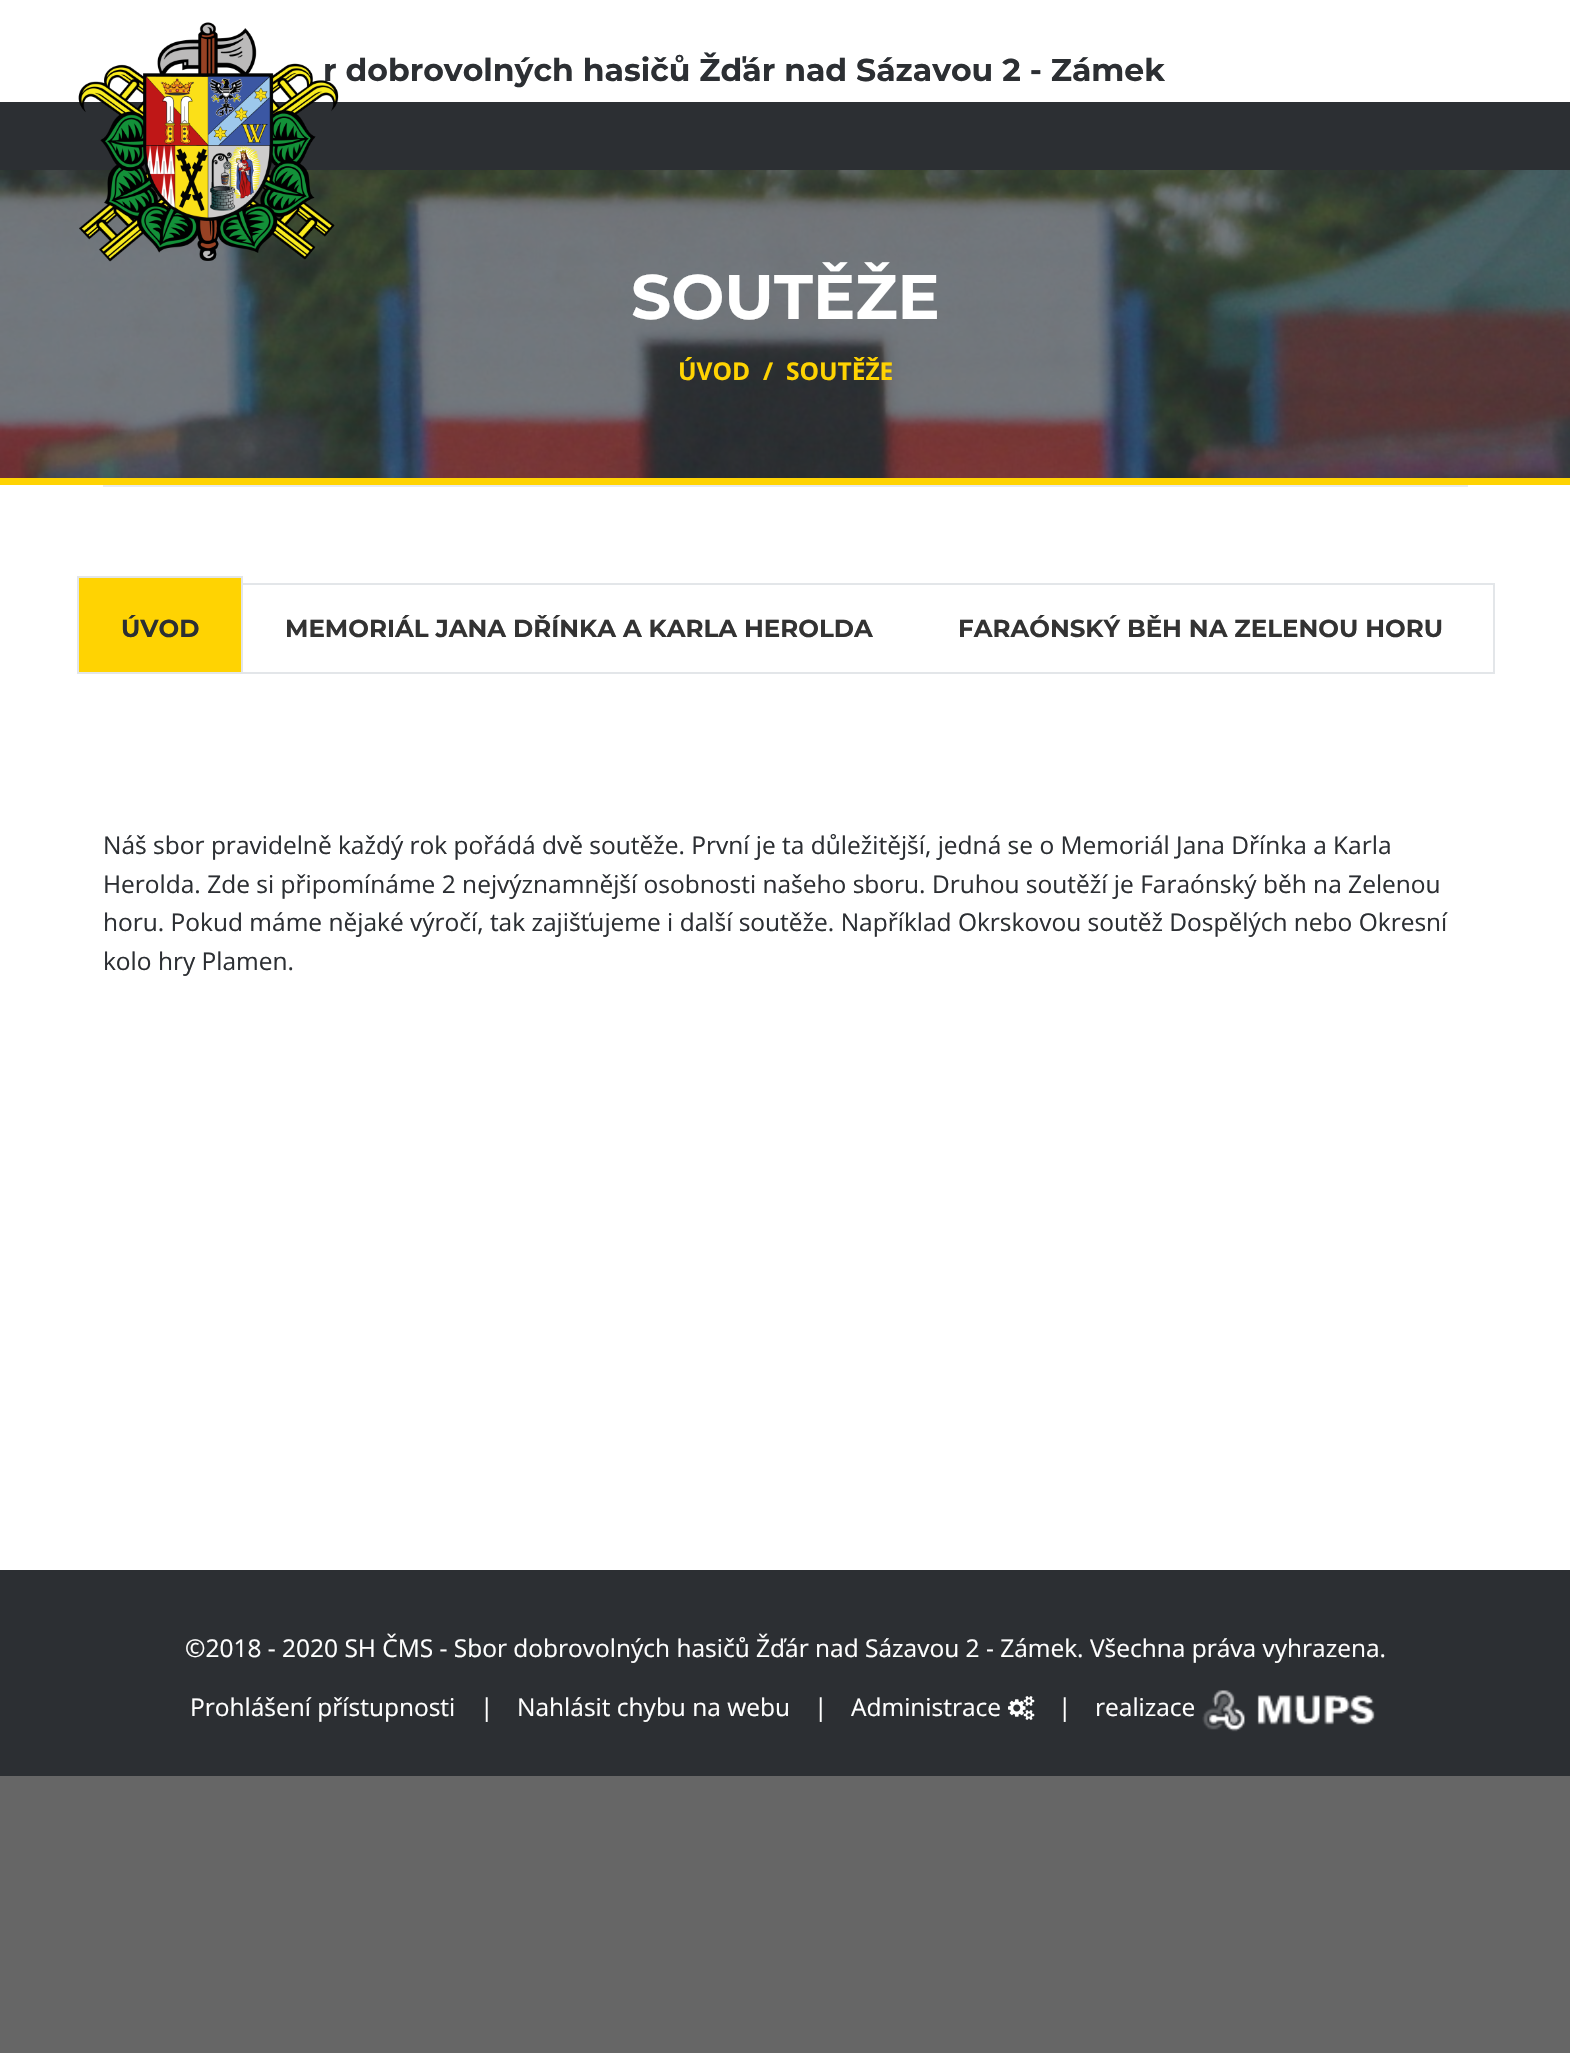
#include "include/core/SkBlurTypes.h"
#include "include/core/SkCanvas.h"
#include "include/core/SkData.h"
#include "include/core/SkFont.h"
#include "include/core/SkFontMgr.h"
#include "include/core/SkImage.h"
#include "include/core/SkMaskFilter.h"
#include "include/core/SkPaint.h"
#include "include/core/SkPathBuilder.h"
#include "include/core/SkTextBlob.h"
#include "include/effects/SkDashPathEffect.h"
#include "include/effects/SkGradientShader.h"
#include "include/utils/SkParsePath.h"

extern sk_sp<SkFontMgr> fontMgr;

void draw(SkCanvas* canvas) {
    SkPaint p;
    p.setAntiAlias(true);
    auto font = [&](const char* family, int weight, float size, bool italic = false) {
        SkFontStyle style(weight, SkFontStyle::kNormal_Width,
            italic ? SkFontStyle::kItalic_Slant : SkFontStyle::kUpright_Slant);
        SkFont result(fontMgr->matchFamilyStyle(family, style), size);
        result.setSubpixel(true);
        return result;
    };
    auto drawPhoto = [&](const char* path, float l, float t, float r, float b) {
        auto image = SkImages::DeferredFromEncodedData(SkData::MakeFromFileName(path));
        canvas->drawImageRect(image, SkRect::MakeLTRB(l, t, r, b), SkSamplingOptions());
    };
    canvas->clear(0xFF666666);
    p.setColor(0xFFFFFFFF);
    canvas->drawRect(SkRect::MakeLTRB(0, 0, 1570, 1570), p);
    p.setColor(0xFF2C2F33);
    canvas->drawRect(SkRect::MakeLTRB(0, 102, 1570, 170), p);
    auto font1 = font("Montserrat", 700, 31.5f);
    canvas->drawString("r dobrovolných hasičů Žďár nad Sázavou 2 - Zámek", 323, 81, font1, p);
    drawPhoto("media/2.png", 0, 170, 1570, 478);
    drawPhoto("media/1.png", 78, 22, 339, 262);
    p.setColor(0xFFFFD302);
    canvas->drawRect(SkRect::MakeLTRB(0, 478, 1570, 485), p);
    auto font2 = font("Montserrat", 700, 63);
    p.setColor(0xFFFFFFFF);
    canvas->drawString("SOUTĚŽE", 631, 319, font2, p);
    auto font3 = font("Open Sans", 700, 24.5f);
    p.setColor(0xFFFFD302);
    {
        const struct { const char* s; float x, y; } items[] = {
            {"ÚVOD", 678, 380},
            {"/", 763, 380},
            {"SOUTĚŽE", 786, 380},
        };
        for (auto [s, x, y] : items) {
            canvas->drawString(s, x, y, font3, p);
        }
    }
    p.setColor(0xFFE8EBF0);
    canvas->drawRect(SkRect::MakeLTRB(103, 485, 1468, 487), p);
    p.setStyle(SkPaint::kStroke_Style);
    p.setStrokeWidth(2);
    p.setColor(0xFFE3E6E9);
    canvas->drawRect(SkRect::MakeLTRB(78, 584, 1494, 673), p);
    p.setStyle(SkPaint::kFill_Style);
    p.setColor(0xFFFFD302);
    canvas->drawRect(SkRect::MakeLTRB(78, 577, 242, 673), p);
    p.setStyle(SkPaint::kStroke_Style);
    p.setColor(0xFFE3E6E9);
    canvas->drawRect(SkRect::MakeLTRB(78, 577, 242, 673), p);
    auto font4 = font("Montserrat", 700, 24.5f);
    p.setStyle(SkPaint::kFill_Style);
    p.setColor(0xFF2C2F33);
    canvas->drawString("ÚVOD", 121, 637, font4, p);
    p.setColor(0xFF333333);
    canvas->drawString("MEMORIÁL JANA DŘÍNKA A KARLA HEROLDA", 285, 637, font4, p);
    canvas->drawString("FARAÓNSKÝ BĚH NA ZELENOU HORU", 958, 637, font4, p);
    auto font5 = font("Open Sans", 400, 24.5f);
    p.setColor(0xFF2C2F33);
    {
        const struct { const char* s; float x, y; } items[] = {
            {"Náš sbor pravidelně každý rok pořádá dvě soutěže. První je ta důležitější, jedná se o Memoriál Jana Dřínka a Karla", 103, 854},
            {"Herolda. Zde si připomínáme 2 nejvýznamnější osobnosti našeho sboru. Druhou soutěží je Faraónský běh na Zelenou", 103, 893},
            {"horu. Pokud máme nějaké výročí, tak zajišťujeme i další soutěže. Například Okrskovou soutěž Dospělých nebo Okresní", 103, 931},
            {"kolo hry Plamen.", 103, 970},
        };
        for (auto [s, x, y] : items) {
            canvas->drawString(s, x, y, font5, p);
        }
    }
    canvas->drawRect(SkRect::MakeLTRB(0, 1570, 1570, 1776), p);
    p.setColor(0xFFFFFFFF);
    {
        const struct { const char* s; float x, y; } items[] = {
            {"©2018 - 2020 SH ČMS - Sbor dobrovolných hasičů Žďár nad Sázavou 2 - Zámek. Všechna práva vyhrazena.", 185, 1657},
            {"Prohlášení přístupnosti", 190, 1716},
            {"|", 480, 1716},
            {"Nahlásit chybu na webu", 517, 1716},
            {"|", 814, 1716},
            {"Administrace", 851, 1716},
        };
        for (auto [s, x, y] : items) {
            canvas->drawString(s, x, y, font5, p);
        }
    }
    drawPhoto("media/3.png", 1008, 1696, 1035, 1720);
    canvas->drawString("|", 1058, 1716, font5, p);
    canvas->drawString("realizace", 1095, 1716, font5, p);
    drawPhoto("media/4.png", 1202, 1690, 1375, 1732);
}
